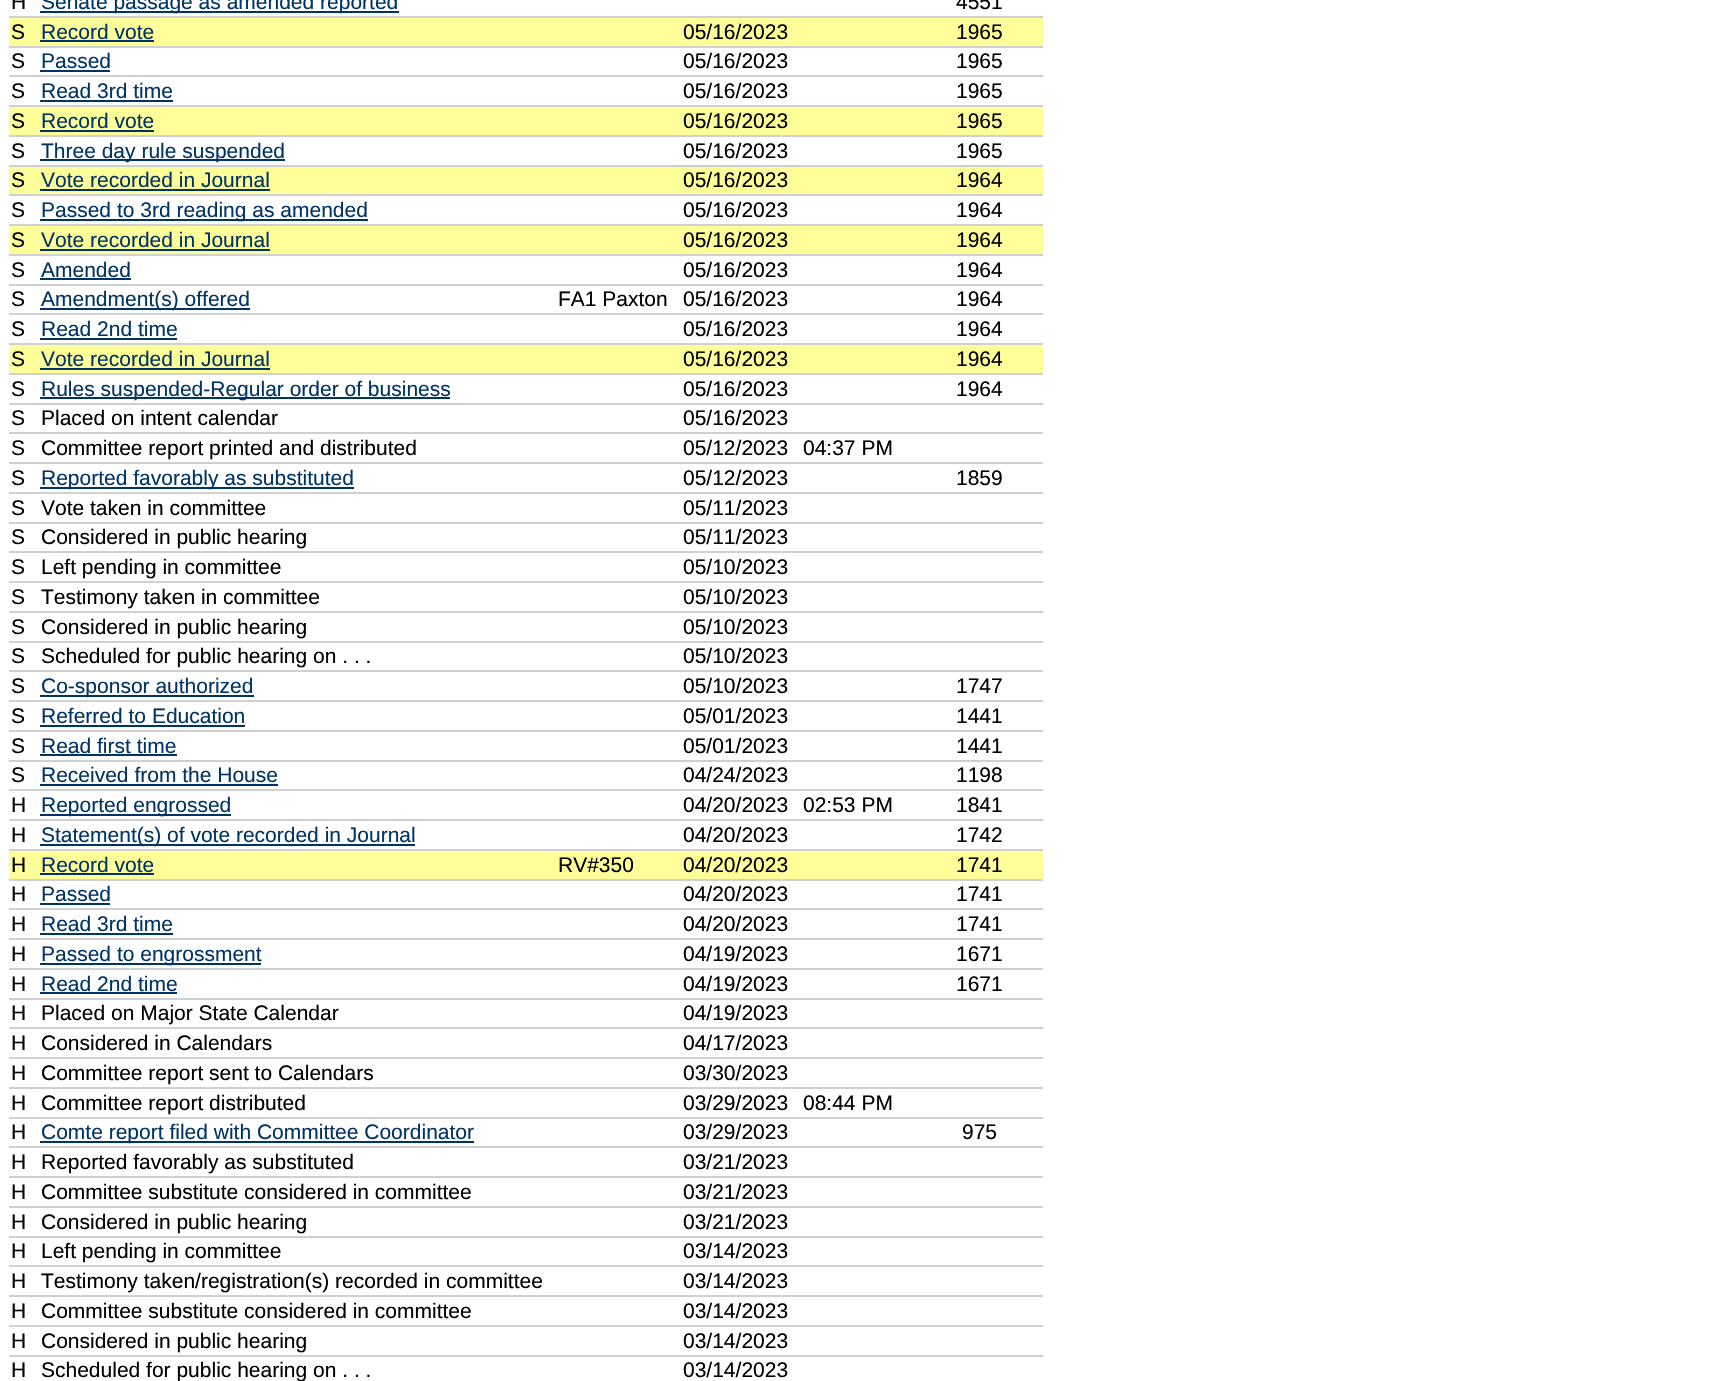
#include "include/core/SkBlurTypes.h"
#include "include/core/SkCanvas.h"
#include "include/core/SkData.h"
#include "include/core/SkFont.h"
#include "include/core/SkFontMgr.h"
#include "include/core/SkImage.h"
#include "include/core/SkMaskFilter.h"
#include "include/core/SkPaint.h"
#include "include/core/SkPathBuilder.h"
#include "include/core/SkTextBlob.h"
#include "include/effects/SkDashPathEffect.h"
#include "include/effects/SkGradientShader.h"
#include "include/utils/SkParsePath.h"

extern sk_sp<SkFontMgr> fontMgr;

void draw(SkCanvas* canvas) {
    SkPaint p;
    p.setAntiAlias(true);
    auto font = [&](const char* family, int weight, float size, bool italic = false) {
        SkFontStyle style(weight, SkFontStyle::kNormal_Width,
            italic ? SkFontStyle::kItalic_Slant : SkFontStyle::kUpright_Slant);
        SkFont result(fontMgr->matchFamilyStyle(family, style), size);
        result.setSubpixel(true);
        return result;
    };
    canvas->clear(0xFFFFFFFF);
    auto font1 = font("Liberation Sans", 400, 21);
    p.setColor(0xFF000000);
    canvas->drawString("H", 11, 9, font1, p);
    p.setColor(0xFF003366);
    canvas->drawRect(SkRect::MakeLTRB(40, 11, 399, 13), p);
    canvas->drawString("Senate passage as amended reported", 41, 9, font1, p);
    p.setColor(0xFF000000);
    canvas->drawString("4551", 956, 9, font1, p);
    p.setColor(0xFFFFFF99);
    canvas->drawRect(SkRect::MakeLTRB(9, 18, 1043, 46), p);
    p.setColor(0xFF000000);
    canvas->drawString("S", 11, 39, font1, p);
    p.setColor(0xFF003366);
    canvas->drawString("Record vote", 41, 39, font1, p);
    canvas->drawRect(SkRect::MakeLTRB(40, 40, 154, 42), p);
    p.setColor(0xFF000000);
    canvas->drawString("05/16/2023", 683, 39, font1, p);
    p.setColor(0xFFD0D0D0);
    canvas->drawRect(SkRect::MakeLTRB(9, 16, 1043, 18), p);
    p.setColor(0xFF000000);
    canvas->drawString("1965", 956, 39, font1, p);
    canvas->drawString("S", 11, 68, font1, p);
    p.setColor(0xFF003366);
    canvas->drawString("Passed", 41, 68, font1, p);
    canvas->drawRect(SkRect::MakeLTRB(40, 70, 110, 72), p);
    p.setColor(0xFF000000);
    canvas->drawString("05/16/2023", 683, 68, font1, p);
    p.setColor(0xFFD0D0D0);
    canvas->drawRect(SkRect::MakeLTRB(9, 46, 1043, 48), p);
    p.setColor(0xFF000000);
    canvas->drawString("1965", 956, 68, font1, p);
    canvas->drawString("S", 11, 98, font1, p);
    p.setColor(0xFF003366);
    canvas->drawString("Read 3rd time", 41, 98, font1, p);
    canvas->drawRect(SkRect::MakeLTRB(40, 100, 173, 102), p);
    p.setColor(0xFF000000);
    canvas->drawString("05/16/2023", 683, 98, font1, p);
    p.setColor(0xFFD0D0D0);
    canvas->drawRect(SkRect::MakeLTRB(9, 75, 1043, 77), p);
    p.setColor(0xFF000000);
    canvas->drawString("1965", 956, 98, font1, p);
    p.setColor(0xFFFFFF99);
    canvas->drawRect(SkRect::MakeLTRB(9, 107, 1043, 135), p);
    p.setColor(0xFF000000);
    canvas->drawString("S", 11, 128, font1, p);
    p.setColor(0xFF003366);
    canvas->drawString("Record vote", 41, 128, font1, p);
    canvas->drawRect(SkRect::MakeLTRB(40, 130, 154, 132), p);
    p.setColor(0xFF000000);
    canvas->drawString("05/16/2023", 683, 128, font1, p);
    p.setColor(0xFFD0D0D0);
    canvas->drawRect(SkRect::MakeLTRB(9, 105, 1043, 107), p);
    p.setColor(0xFF000000);
    canvas->drawString("1965", 956, 128, font1, p);
    canvas->drawString("S", 11, 158, font1, p);
    p.setColor(0xFF003366);
    canvas->drawRect(SkRect::MakeLTRB(40, 159, 285, 161), p);
    canvas->drawString("Three day rule suspended", 41, 158, font1, p);
    p.setColor(0xFF000000);
    canvas->drawString("05/16/2023", 683, 158, font1, p);
    p.setColor(0xFFD0D0D0);
    canvas->drawRect(SkRect::MakeLTRB(9, 135, 1043, 137), p);
    p.setColor(0xFF000000);
    canvas->drawString("1965", 956, 158, font1, p);
    p.setColor(0xFFFFFF99);
    canvas->drawRect(SkRect::MakeLTRB(9, 167, 1043, 194), p);
    p.setColor(0xFF000000);
    canvas->drawString("S", 11, 187, font1, p);
    p.setColor(0xFF003366);
    canvas->drawString("Vote recorded in Journal", 41, 187, font1, p);
    canvas->drawRect(SkRect::MakeLTRB(40, 189, 270, 191), p);
    p.setColor(0xFF000000);
    canvas->drawString("05/16/2023", 683, 187, font1, p);
    p.setColor(0xFFD0D0D0);
    canvas->drawRect(SkRect::MakeLTRB(9, 165, 1043, 167), p);
    p.setColor(0xFF000000);
    canvas->drawString("1964", 956, 187, font1, p);
    canvas->drawString("S", 11, 217, font1, p);
    p.setColor(0xFF003366);
    canvas->drawRect(SkRect::MakeLTRB(40, 219, 368, 221), p);
    canvas->drawString("Passed to 3rd reading as amended", 41, 217, font1, p);
    p.setColor(0xFF000000);
    canvas->drawString("05/16/2023", 683, 217, font1, p);
    p.setColor(0xFFD0D0D0);
    canvas->drawRect(SkRect::MakeLTRB(9, 194, 1043, 196), p);
    p.setColor(0xFF000000);
    canvas->drawString("1964", 956, 217, font1, p);
    p.setColor(0xFFFFFF99);
    canvas->drawRect(SkRect::MakeLTRB(9, 226, 1043, 254), p);
    p.setColor(0xFF000000);
    canvas->drawString("S", 11, 247, font1, p);
    p.setColor(0xFF003366);
    canvas->drawString("Vote recorded in Journal", 41, 247, font1, p);
    canvas->drawRect(SkRect::MakeLTRB(40, 249, 270, 251), p);
    p.setColor(0xFF000000);
    canvas->drawString("05/16/2023", 683, 247, font1, p);
    p.setColor(0xFFD0D0D0);
    canvas->drawRect(SkRect::MakeLTRB(9, 224, 1043, 226), p);
    p.setColor(0xFF000000);
    canvas->drawString("1964", 956, 247, font1, p);
    canvas->drawString("S", 11, 277, font1, p);
    p.setColor(0xFF003366);
    canvas->drawString("Amended", 41, 277, font1, p);
    canvas->drawRect(SkRect::MakeLTRB(40, 278, 131, 280), p);
    p.setColor(0xFF000000);
    canvas->drawString("05/16/2023", 683, 277, font1, p);
    p.setColor(0xFFD0D0D0);
    canvas->drawRect(SkRect::MakeLTRB(9, 254, 1043, 256), p);
    p.setColor(0xFF000000);
    canvas->drawString("1964", 956, 277, font1, p);
    canvas->drawString("S", 11, 306, font1, p);
    p.setColor(0xFF003366);
    canvas->drawRect(SkRect::MakeLTRB(40, 308, 250, 310), p);
    canvas->drawString("Amendment(s) offered", 41, 306, font1, p);
    p.setColor(0xFF000000);
    canvas->drawString("FA1 Paxton", 558, 306, font1, p);
    canvas->drawString("05/16/2023", 683, 306, font1, p);
    p.setColor(0xFFD0D0D0);
    canvas->drawRect(SkRect::MakeLTRB(9, 284, 1043, 286), p);
    p.setColor(0xFF000000);
    canvas->drawString("1964", 956, 306, font1, p);
    canvas->drawString("S", 11, 336, font1, p);
    p.setColor(0xFF003366);
    canvas->drawString("Read 2nd time", 41, 336, font1, p);
    canvas->drawRect(SkRect::MakeLTRB(40, 338, 177, 340), p);
    p.setColor(0xFF000000);
    canvas->drawString("05/16/2023", 683, 336, font1, p);
    p.setColor(0xFFD0D0D0);
    canvas->drawRect(SkRect::MakeLTRB(9, 313, 1043, 315), p);
    p.setColor(0xFF000000);
    canvas->drawString("1964", 956, 336, font1, p);
    p.setColor(0xFFFFFF99);
    canvas->drawRect(SkRect::MakeLTRB(9, 345, 1043, 373), p);
    p.setColor(0xFF000000);
    canvas->drawString("S", 11, 366, font1, p);
    p.setColor(0xFF003366);
    canvas->drawString("Vote recorded in Journal", 41, 366, font1, p);
    canvas->drawRect(SkRect::MakeLTRB(40, 368, 270, 370), p);
    p.setColor(0xFF000000);
    canvas->drawString("05/16/2023", 683, 366, font1, p);
    p.setColor(0xFFD0D0D0);
    canvas->drawRect(SkRect::MakeLTRB(9, 343, 1043, 345), p);
    p.setColor(0xFF000000);
    canvas->drawString("1964", 956, 366, font1, p);
    canvas->drawString("S", 11, 396, font1, p);
    p.setColor(0xFF003366);
    canvas->drawRect(SkRect::MakeLTRB(40, 397, 450, 399), p);
    canvas->drawString("Rules suspended-Regular order of business", 41, 396, font1, p);
    p.setColor(0xFF000000);
    canvas->drawString("05/16/2023", 683, 396, font1, p);
    p.setColor(0xFFD0D0D0);
    canvas->drawRect(SkRect::MakeLTRB(9, 373, 1043, 375), p);
    p.setColor(0xFF000000);
    canvas->drawString("1964", 956, 396, font1, p);
    p.setColor(0xFFD0D0D0);
    canvas->drawRect(SkRect::MakeLTRB(9, 403, 1043, 405), p);
    p.setColor(0xFF000000);
    {
        const struct { const char* s; float x, y; } items[] = {
            {"S", 11, 425},
            {"Placed on intent calendar", 41, 425},
            {"05/16/2023", 683, 425},
        };
        for (auto [s, x, y] : items) {
            canvas->drawString(s, x, y, font1, p);
        }
    }
    p.setColor(0xFFD0D0D0);
    canvas->drawRect(SkRect::MakeLTRB(9, 432, 1043, 434), p);
    p.setColor(0xFF000000);
    {
        const struct { const char* s; float x, y; } items[] = {
            {"S", 11, 455},
            {"Committee report printed and distributed", 41, 455},
            {"05/12/2023", 683, 455},
            {"04:37 PM", 803, 455},
            {"S", 11, 485},
        };
        for (auto [s, x, y] : items) {
            canvas->drawString(s, x, y, font1, p);
        }
    }
    p.setColor(0xFF003366);
    canvas->drawRect(SkRect::MakeLTRB(40, 487, 354, 489), p);
    canvas->drawString("Reported favorably as substituted", 41, 485, font1, p);
    p.setColor(0xFF000000);
    canvas->drawString("05/12/2023", 683, 485, font1, p);
    p.setColor(0xFFD0D0D0);
    canvas->drawRect(SkRect::MakeLTRB(9, 462, 1043, 464), p);
    p.setColor(0xFF000000);
    canvas->drawString("1859", 956, 485, font1, p);
    p.setColor(0xFFD0D0D0);
    canvas->drawRect(SkRect::MakeLTRB(9, 492, 1043, 494), p);
    p.setColor(0xFF000000);
    {
        const struct { const char* s; float x, y; } items[] = {
            {"S", 11, 515},
            {"Vote taken in committee", 41, 515},
            {"05/11/2023", 683, 515},
        };
        for (auto [s, x, y] : items) {
            canvas->drawString(s, x, y, font1, p);
        }
    }
    p.setColor(0xFFD0D0D0);
    canvas->drawRect(SkRect::MakeLTRB(9, 522, 1043, 524), p);
    p.setColor(0xFF000000);
    {
        const struct { const char* s; float x, y; } items[] = {
            {"S", 11, 544},
            {"Considered in public hearing", 41, 544},
            {"05/11/2023", 683, 544},
        };
        for (auto [s, x, y] : items) {
            canvas->drawString(s, x, y, font1, p);
        }
    }
    p.setColor(0xFFD0D0D0);
    canvas->drawRect(SkRect::MakeLTRB(9, 551, 1043, 553), p);
    p.setColor(0xFF000000);
    {
        const struct { const char* s; float x, y; } items[] = {
            {"S", 11, 574},
            {"Left pending in committee", 41, 574},
            {"05/10/2023", 683, 574},
        };
        for (auto [s, x, y] : items) {
            canvas->drawString(s, x, y, font1, p);
        }
    }
    p.setColor(0xFFD0D0D0);
    canvas->drawRect(SkRect::MakeLTRB(9, 581, 1043, 583), p);
    p.setColor(0xFF000000);
    {
        const struct { const char* s; float x, y; } items[] = {
            {"S", 11, 604},
            {"Testimony taken in committee", 41, 604},
            {"05/10/2023", 683, 604},
        };
        for (auto [s, x, y] : items) {
            canvas->drawString(s, x, y, font1, p);
        }
    }
    p.setColor(0xFFD0D0D0);
    canvas->drawRect(SkRect::MakeLTRB(9, 611, 1043, 613), p);
    p.setColor(0xFF000000);
    {
        const struct { const char* s; float x, y; } items[] = {
            {"S", 11, 634},
            {"Considered in public hearing", 41, 634},
            {"05/10/2023", 683, 634},
        };
        for (auto [s, x, y] : items) {
            canvas->drawString(s, x, y, font1, p);
        }
    }
    p.setColor(0xFFD0D0D0);
    canvas->drawRect(SkRect::MakeLTRB(9, 641, 1043, 643), p);
    p.setColor(0xFF000000);
    {
        const struct { const char* s; float x, y; } items[] = {
            {"S", 11, 663},
            {"Scheduled for public hearing on . . .", 41, 663},
            {"05/10/2023", 683, 663},
            {"S", 11, 693},
        };
        for (auto [s, x, y] : items) {
            canvas->drawString(s, x, y, font1, p);
        }
    }
    p.setColor(0xFF003366);
    canvas->drawRect(SkRect::MakeLTRB(40, 695, 254, 697), p);
    canvas->drawString("Co-sponsor authorized", 41, 693, font1, p);
    p.setColor(0xFF000000);
    canvas->drawString("05/10/2023", 683, 693, font1, p);
    p.setColor(0xFFD0D0D0);
    canvas->drawRect(SkRect::MakeLTRB(9, 670, 1043, 672), p);
    p.setColor(0xFF000000);
    canvas->drawString("1747", 956, 693, font1, p);
    canvas->drawString("S", 11, 723, font1, p);
    p.setColor(0xFF003366);
    canvas->drawString("Referred to Education", 41, 723, font1, p);
    canvas->drawRect(SkRect::MakeLTRB(40, 725, 245, 727), p);
    p.setColor(0xFF000000);
    canvas->drawString("05/01/2023", 683, 723, font1, p);
    p.setColor(0xFFD0D0D0);
    canvas->drawRect(SkRect::MakeLTRB(9, 700, 1043, 702), p);
    p.setColor(0xFF000000);
    canvas->drawString("1441", 956, 723, font1, p);
    canvas->drawString("S", 11, 753, font1, p);
    p.setColor(0xFF003366);
    canvas->drawString("Read first time", 41, 753, font1, p);
    canvas->drawRect(SkRect::MakeLTRB(40, 754, 177, 756), p);
    p.setColor(0xFF000000);
    canvas->drawString("05/01/2023", 683, 753, font1, p);
    p.setColor(0xFFD0D0D0);
    canvas->drawRect(SkRect::MakeLTRB(9, 730, 1043, 732), p);
    p.setColor(0xFF000000);
    canvas->drawString("1441", 956, 753, font1, p);
    canvas->drawString("S", 11, 782, font1, p);
    p.setColor(0xFF003366);
    canvas->drawString("Received from the House", 41, 782, font1, p);
    canvas->drawRect(SkRect::MakeLTRB(40, 784, 278, 786), p);
    p.setColor(0xFF000000);
    canvas->drawString("04/24/2023", 683, 782, font1, p);
    p.setColor(0xFFD0D0D0);
    canvas->drawRect(SkRect::MakeLTRB(9, 760, 1043, 762), p);
    p.setColor(0xFF000000);
    canvas->drawString("1198", 956, 782, font1, p);
    canvas->drawString("H", 11, 812, font1, p);
    p.setColor(0xFF003366);
    canvas->drawRect(SkRect::MakeLTRB(40, 814, 231, 816), p);
    canvas->drawString("Reported engrossed", 41, 812, font1, p);
    p.setColor(0xFF000000);
    canvas->drawString("04/20/2023", 683, 812, font1, p);
    canvas->drawString("02:53 PM", 803, 812, font1, p);
    p.setColor(0xFFD0D0D0);
    canvas->drawRect(SkRect::MakeLTRB(9, 789, 1043, 791), p);
    p.setColor(0xFF000000);
    canvas->drawString("1841", 956, 812, font1, p);
    canvas->drawString("H", 11, 842, font1, p);
    p.setColor(0xFF003366);
    canvas->drawRect(SkRect::MakeLTRB(40, 844, 415, 846), p);
    canvas->drawString("Statement(s) of vote recorded in Journal", 41, 842, font1, p);
    p.setColor(0xFF000000);
    canvas->drawString("04/20/2023", 683, 842, font1, p);
    p.setColor(0xFFD0D0D0);
    canvas->drawRect(SkRect::MakeLTRB(9, 819, 1043, 821), p);
    p.setColor(0xFF000000);
    canvas->drawString("1742", 956, 842, font1, p);
    p.setColor(0xFFFFFF99);
    canvas->drawRect(SkRect::MakeLTRB(9, 851, 1043, 879), p);
    p.setColor(0xFF000000);
    canvas->drawString("H", 11, 872, font1, p);
    p.setColor(0xFF003366);
    canvas->drawString("Record vote", 41, 872, font1, p);
    canvas->drawRect(SkRect::MakeLTRB(40, 873, 154, 875), p);
    p.setColor(0xFF000000);
    canvas->drawString("RV#350", 558, 872, font1, p);
    canvas->drawString("04/20/2023", 683, 872, font1, p);
    p.setColor(0xFFD0D0D0);
    canvas->drawRect(SkRect::MakeLTRB(9, 849, 1043, 851), p);
    p.setColor(0xFF000000);
    canvas->drawString("1741", 956, 872, font1, p);
    canvas->drawString("H", 11, 901, font1, p);
    p.setColor(0xFF003366);
    canvas->drawString("Passed", 41, 901, font1, p);
    canvas->drawRect(SkRect::MakeLTRB(40, 903, 110, 905), p);
    p.setColor(0xFF000000);
    canvas->drawString("04/20/2023", 683, 901, font1, p);
    p.setColor(0xFFD0D0D0);
    canvas->drawRect(SkRect::MakeLTRB(9, 879, 1043, 881), p);
    p.setColor(0xFF000000);
    canvas->drawString("1741", 956, 901, font1, p);
    canvas->drawString("H", 11, 931, font1, p);
    p.setColor(0xFF003366);
    canvas->drawString("Read 3rd time", 41, 931, font1, p);
    canvas->drawRect(SkRect::MakeLTRB(40, 933, 173, 935), p);
    p.setColor(0xFF000000);
    canvas->drawString("04/20/2023", 683, 931, font1, p);
    p.setColor(0xFFD0D0D0);
    canvas->drawRect(SkRect::MakeLTRB(9, 908, 1043, 910), p);
    p.setColor(0xFF000000);
    canvas->drawString("1741", 956, 931, font1, p);
    canvas->drawString("H", 11, 961, font1, p);
    p.setColor(0xFF003366);
    canvas->drawRect(SkRect::MakeLTRB(40, 963, 261, 965), p);
    canvas->drawString("Passed to engrossment", 41, 961, font1, p);
    p.setColor(0xFF000000);
    canvas->drawString("04/19/2023", 683, 961, font1, p);
    p.setColor(0xFFD0D0D0);
    canvas->drawRect(SkRect::MakeLTRB(9, 938, 1043, 940), p);
    p.setColor(0xFF000000);
    canvas->drawString("1671", 956, 961, font1, p);
    canvas->drawString("H", 11, 991, font1, p);
    p.setColor(0xFF003366);
    canvas->drawString("Read 2nd time", 41, 991, font1, p);
    canvas->drawRect(SkRect::MakeLTRB(40, 992, 177, 994), p);
    p.setColor(0xFF000000);
    canvas->drawString("04/19/2023", 683, 991, font1, p);
    p.setColor(0xFFD0D0D0);
    canvas->drawRect(SkRect::MakeLTRB(9, 968, 1043, 970), p);
    p.setColor(0xFF000000);
    canvas->drawString("1671", 956, 991, font1, p);
    p.setColor(0xFFD0D0D0);
    canvas->drawRect(SkRect::MakeLTRB(9, 998, 1043, 1000), p);
    p.setColor(0xFF000000);
    {
        const struct { const char* s; float x, y; } items[] = {
            {"H", 11, 1020},
            {"Placed on Major State Calendar", 41, 1020},
            {"04/19/2023", 683, 1020},
        };
        for (auto [s, x, y] : items) {
            canvas->drawString(s, x, y, font1, p);
        }
    }
    p.setColor(0xFFD0D0D0);
    canvas->drawRect(SkRect::MakeLTRB(9, 1027, 1043, 1029), p);
    p.setColor(0xFF000000);
    {
        const struct { const char* s; float x, y; } items[] = {
            {"H", 11, 1050},
            {"Considered in Calendars", 41, 1050},
            {"04/17/2023", 683, 1050},
        };
        for (auto [s, x, y] : items) {
            canvas->drawString(s, x, y, font1, p);
        }
    }
    p.setColor(0xFFD0D0D0);
    canvas->drawRect(SkRect::MakeLTRB(9, 1057, 1043, 1059), p);
    p.setColor(0xFF000000);
    {
        const struct { const char* s; float x, y; } items[] = {
            {"H", 11, 1080},
            {"Committee report sent to Calendars", 41, 1080},
            {"03/30/2023", 683, 1080},
        };
        for (auto [s, x, y] : items) {
            canvas->drawString(s, x, y, font1, p);
        }
    }
    p.setColor(0xFFD0D0D0);
    canvas->drawRect(SkRect::MakeLTRB(9, 1087, 1043, 1089), p);
    p.setColor(0xFF000000);
    {
        const struct { const char* s; float x, y; } items[] = {
            {"H", 11, 1110},
            {"Committee report distributed", 41, 1110},
            {"03/29/2023", 683, 1110},
            {"08:44 PM", 803, 1110},
            {"H", 11, 1139},
        };
        for (auto [s, x, y] : items) {
            canvas->drawString(s, x, y, font1, p);
        }
    }
    p.setColor(0xFF003366);
    canvas->drawRect(SkRect::MakeLTRB(40, 1141, 474, 1143), p);
    canvas->drawString("Comte report filed with Committee Coordinator", 41, 1139, font1, p);
    p.setColor(0xFF000000);
    canvas->drawString("03/29/2023", 683, 1139, font1, p);
    p.setColor(0xFFD0D0D0);
    canvas->drawRect(SkRect::MakeLTRB(9, 1117, 1043, 1119), p);
    p.setColor(0xFF000000);
    canvas->drawString("975", 962, 1139, font1, p);
    p.setColor(0xFFD0D0D0);
    canvas->drawRect(SkRect::MakeLTRB(9, 1146, 1043, 1148), p);
    p.setColor(0xFF000000);
    {
        const struct { const char* s; float x, y; } items[] = {
            {"H", 11, 1169},
            {"Reported favorably as substituted", 41, 1169},
            {"03/21/2023", 683, 1169},
        };
        for (auto [s, x, y] : items) {
            canvas->drawString(s, x, y, font1, p);
        }
    }
    p.setColor(0xFFD0D0D0);
    canvas->drawRect(SkRect::MakeLTRB(9, 1176, 1043, 1178), p);
    p.setColor(0xFF000000);
    {
        const struct { const char* s; float x, y; } items[] = {
            {"H", 11, 1199},
            {"Committee substitute considered in committee", 41, 1199},
            {"03/21/2023", 683, 1199},
        };
        for (auto [s, x, y] : items) {
            canvas->drawString(s, x, y, font1, p);
        }
    }
    p.setColor(0xFFD0D0D0);
    canvas->drawRect(SkRect::MakeLTRB(9, 1206, 1043, 1208), p);
    p.setColor(0xFF000000);
    {
        const struct { const char* s; float x, y; } items[] = {
            {"H", 11, 1229},
            {"Considered in public hearing", 41, 1229},
            {"03/21/2023", 683, 1229},
        };
        for (auto [s, x, y] : items) {
            canvas->drawString(s, x, y, font1, p);
        }
    }
    p.setColor(0xFFD0D0D0);
    canvas->drawRect(SkRect::MakeLTRB(9, 1236, 1043, 1238), p);
    p.setColor(0xFF000000);
    {
        const struct { const char* s; float x, y; } items[] = {
            {"H", 11, 1258},
            {"Left pending in committee", 41, 1258},
            {"03/14/2023", 683, 1258},
        };
        for (auto [s, x, y] : items) {
            canvas->drawString(s, x, y, font1, p);
        }
    }
    p.setColor(0xFFD0D0D0);
    canvas->drawRect(SkRect::MakeLTRB(9, 1265, 1043, 1267), p);
    p.setColor(0xFF000000);
    {
        const struct { const char* s; float x, y; } items[] = {
            {"H", 11, 1288},
            {"Testimony taken/registration(s) recorded in committee", 41, 1288},
            {"03/14/2023", 683, 1288},
        };
        for (auto [s, x, y] : items) {
            canvas->drawString(s, x, y, font1, p);
        }
    }
    p.setColor(0xFFD0D0D0);
    canvas->drawRect(SkRect::MakeLTRB(9, 1295, 1043, 1297), p);
    p.setColor(0xFF000000);
    {
        const struct { const char* s; float x, y; } items[] = {
            {"H", 11, 1318},
            {"Committee substitute considered in committee", 41, 1318},
            {"03/14/2023", 683, 1318},
        };
        for (auto [s, x, y] : items) {
            canvas->drawString(s, x, y, font1, p);
        }
    }
    p.setColor(0xFFD0D0D0);
    canvas->drawRect(SkRect::MakeLTRB(9, 1325, 1043, 1327), p);
    p.setColor(0xFF000000);
    {
        const struct { const char* s; float x, y; } items[] = {
            {"H", 11, 1348},
            {"Considered in public hearing", 41, 1348},
            {"03/14/2023", 683, 1348},
        };
        for (auto [s, x, y] : items) {
            canvas->drawString(s, x, y, font1, p);
        }
    }
    p.setColor(0xFFD0D0D0);
    canvas->drawRect(SkRect::MakeLTRB(9, 1355, 1043, 1357), p);
    p.setColor(0xFF000000);
    {
        const struct { const char* s; float x, y; } items[] = {
            {"H", 11, 1377},
            {"Scheduled for public hearing on . . .", 41, 1377},
            {"03/14/2023", 683, 1377},
        };
        for (auto [s, x, y] : items) {
            canvas->drawString(s, x, y, font1, p);
        }
    }
}
